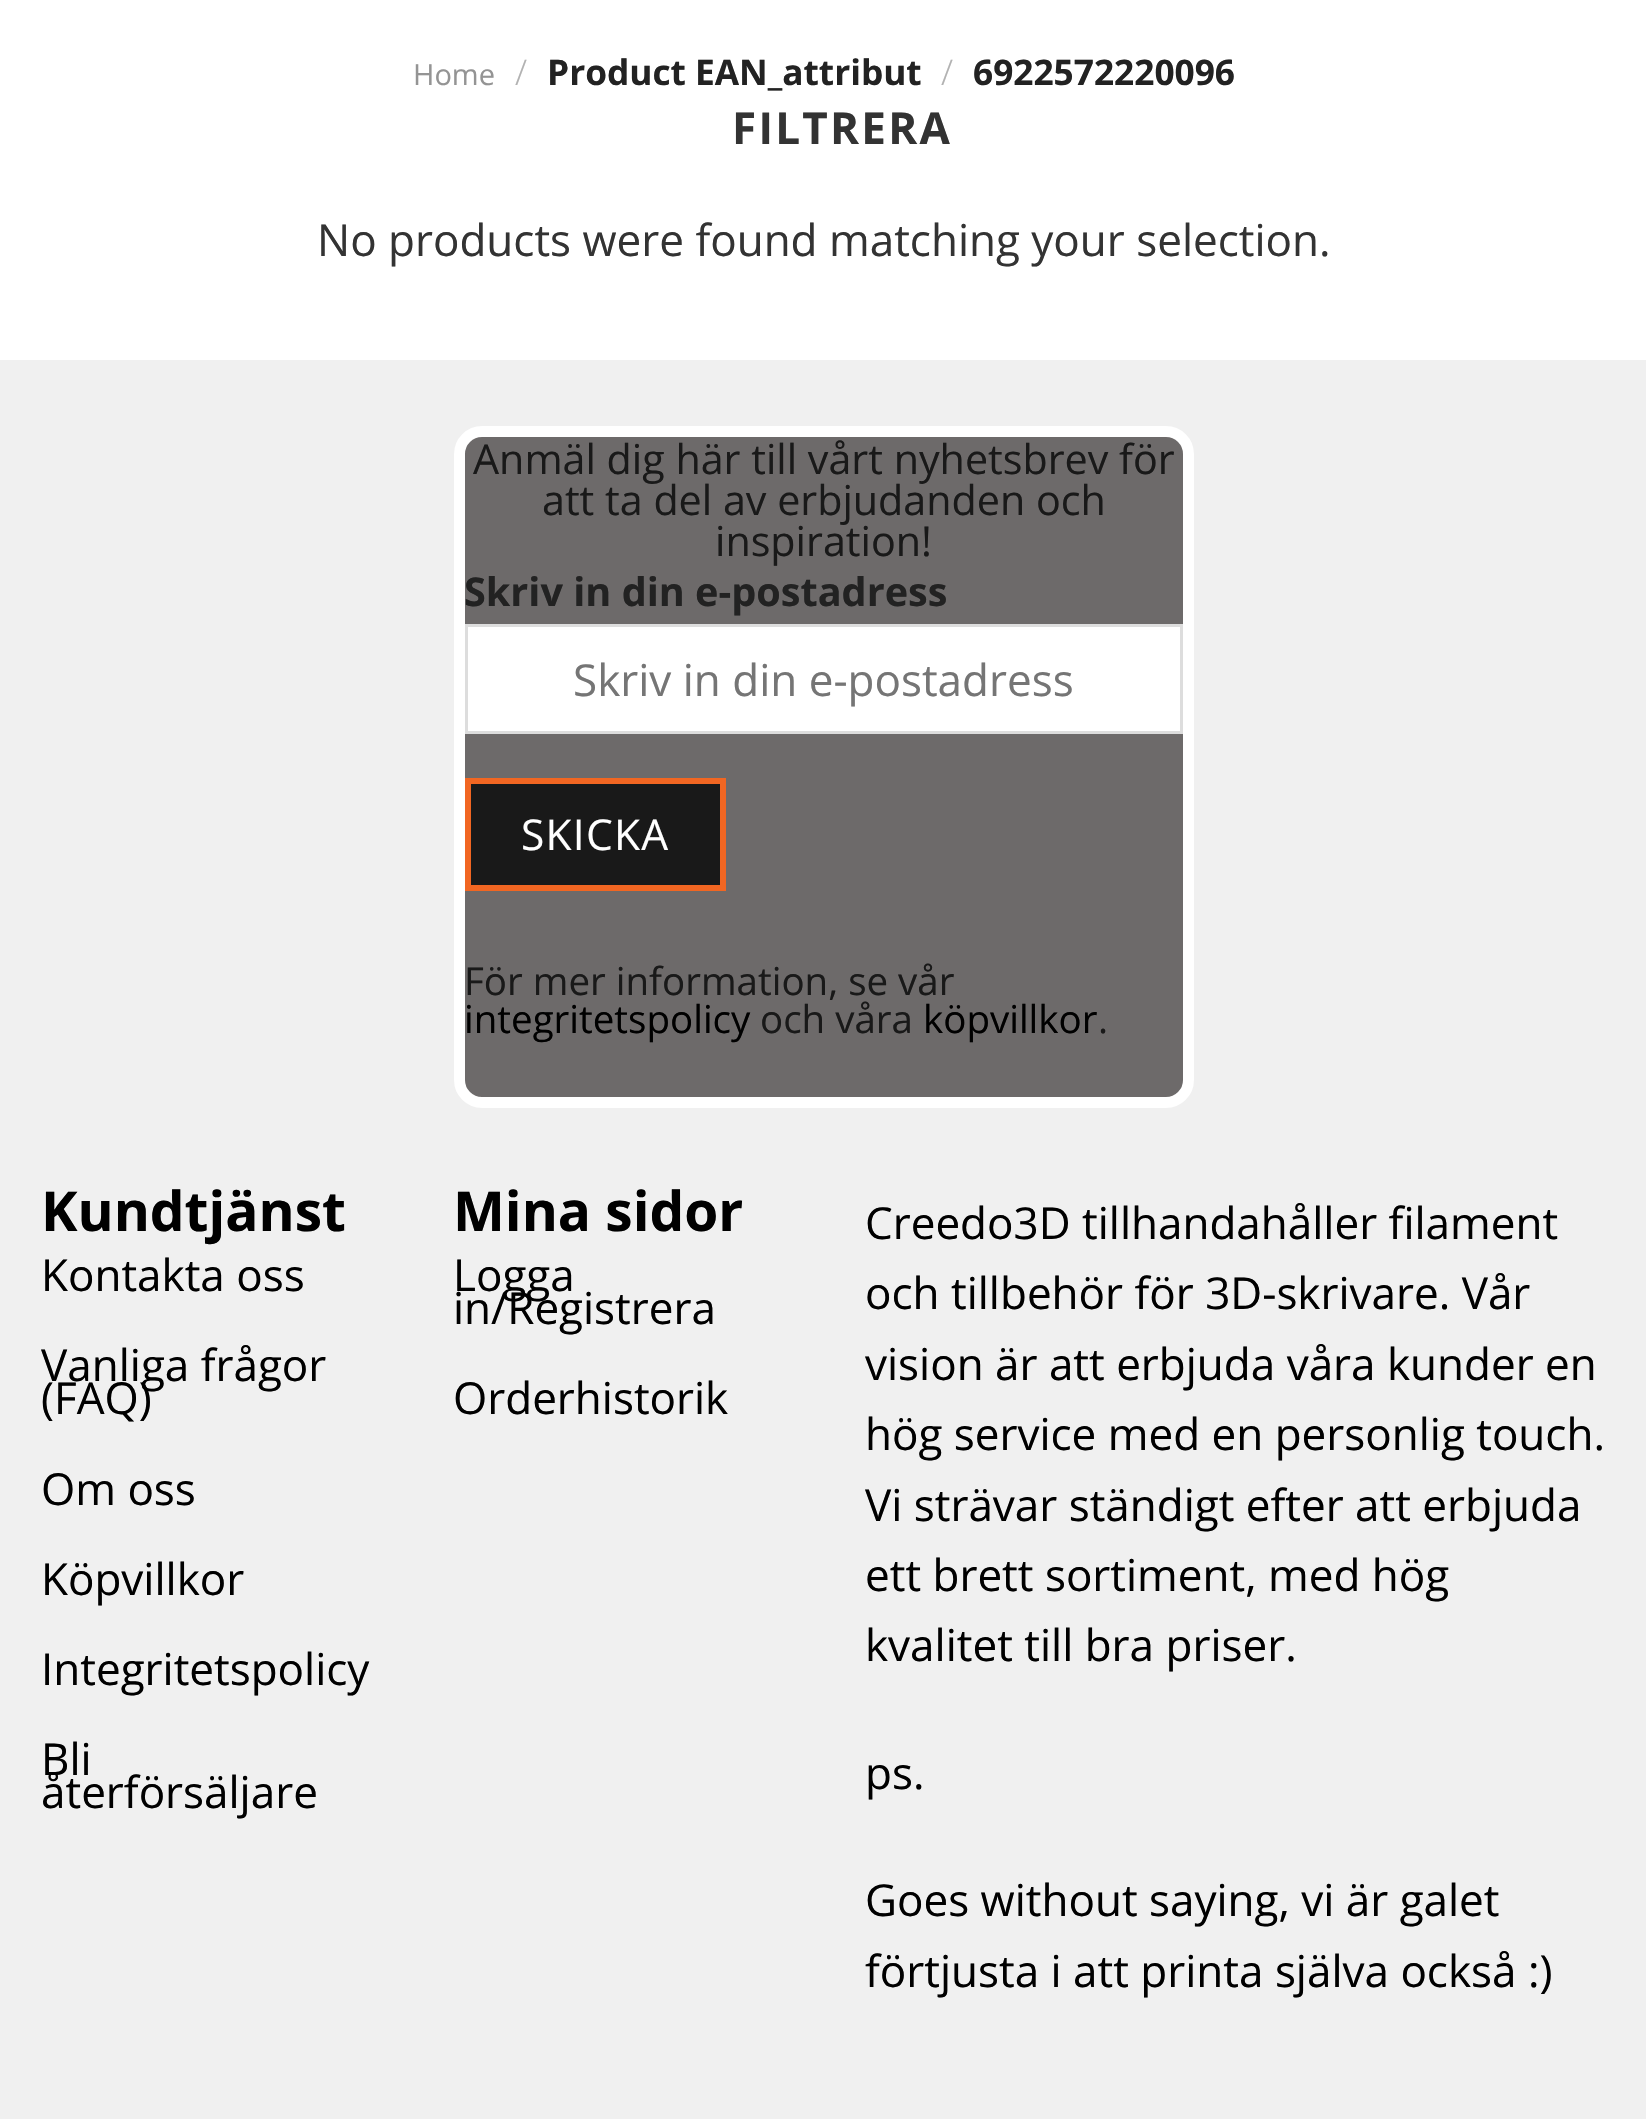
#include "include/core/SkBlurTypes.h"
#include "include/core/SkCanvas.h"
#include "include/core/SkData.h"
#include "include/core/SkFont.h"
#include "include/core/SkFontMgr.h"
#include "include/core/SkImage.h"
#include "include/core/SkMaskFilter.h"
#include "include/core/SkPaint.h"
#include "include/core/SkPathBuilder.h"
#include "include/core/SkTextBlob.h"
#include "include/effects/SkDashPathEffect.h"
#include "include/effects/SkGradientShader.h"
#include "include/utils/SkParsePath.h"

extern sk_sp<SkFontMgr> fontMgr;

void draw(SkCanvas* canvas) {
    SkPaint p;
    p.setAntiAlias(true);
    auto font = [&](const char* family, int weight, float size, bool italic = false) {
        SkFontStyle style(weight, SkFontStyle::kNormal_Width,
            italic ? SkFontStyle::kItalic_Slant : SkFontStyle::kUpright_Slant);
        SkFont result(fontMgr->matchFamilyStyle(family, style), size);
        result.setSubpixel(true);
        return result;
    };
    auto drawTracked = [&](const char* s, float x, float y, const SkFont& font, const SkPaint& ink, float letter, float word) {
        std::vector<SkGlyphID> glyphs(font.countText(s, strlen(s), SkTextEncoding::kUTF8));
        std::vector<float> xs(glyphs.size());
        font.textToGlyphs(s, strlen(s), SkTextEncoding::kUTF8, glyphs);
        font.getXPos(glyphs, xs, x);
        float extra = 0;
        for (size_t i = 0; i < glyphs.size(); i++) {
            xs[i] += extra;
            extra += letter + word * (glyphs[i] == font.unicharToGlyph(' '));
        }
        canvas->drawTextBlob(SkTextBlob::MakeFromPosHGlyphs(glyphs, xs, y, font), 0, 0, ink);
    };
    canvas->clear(0xFFFFFFFF);
    auto font1 = font("Open Sans", 400, 29);
    p.setColor(0xFF949494);
    canvas->drawString("Home", 413, 85, font1, p);
    auto font2 = font("Open Sans", 300, 35.25f);
    p.setColor(0xFFB2B2B2);
    canvas->drawString("/", 515, 85, font2, p);
    auto font3 = font("Open Sans", 700, 35.25f);
    p.setColor(0xFF222222);
    canvas->drawString("Product EAN_attribut", 547, 85, font3, p);
    p.setColor(0xFFB2B2B2);
    canvas->drawString("/", 941, 85, font2, p);
    p.setColor(0xFF222222);
    canvas->drawString("6922572220096", 973, 85, font3, p);
    auto font4 = font("Open Sans", 700, 44);
    p.setColor(0xFF333333);
    drawTracked("FILTRERA", 732, 144, font4, p, 2.25f, 0);
    auto font5 = font("Open Sans", 400, 44);
    canvas->drawString("No products were found matching your selection.", 317, 256, font5, p);
    p.setColor(0xFFF0F0F0);
    canvas->drawRect(SkRect::MakeLTRB(0, 360, 1646, 2119), p);
    p.setColor(0xFF6D6A6A);
    canvas->drawRoundRect(SkRect::MakeLTRB(459.5f, 431.5f, 1188.5f, 1102.5f), 22.5f, 22.5f, p);
    p.setStyle(SkPaint::kStroke_Style);
    p.setStrokeWidth(11);
    p.setColor(0xFFFFFFFF);
    canvas->drawRoundRect(SkRect::MakeLTRB(459.5f, 431.5f, 1188.5f, 1102.5f), 22.5f, 22.5f, p);
    auto font6 = font("Open Sans", 400, 41.25f);
    p.setStyle(SkPaint::kFill_Style);
    p.setColor(0xFF191919);
    {
        const struct { const char* s; float x, y; } items[] = {
            {"Anmäl dig här till vårt nyhetsbrev för", 473, 474},
            {"att ta del av erbjudanden och", 542, 515},
            {"inspiration!", 715, 556},
        };
        for (auto [s, x, y] : items) {
            canvas->drawString(s, x, y, font6, p);
        }
    }
    auto font7 = font("Open Sans", 700, 39.6f);
    p.setColor(0xFF222222);
    canvas->drawString("Skriv in din e-postadress", 464, 606, font7, p);
    p.setColor(0xFFFFFFFF);
    canvas->drawRect(SkRect::MakeLTRB(466.5f, 625.5f, 1181.5f, 732.5f), p);
    p.setStyle(SkPaint::kStroke_Style);
    p.setStrokeWidth(3);
    p.setColor(0xFFDDDDDD);
    canvas->drawRect(SkRect::MakeLTRB(466.5f, 625.5f, 1181.5f, 732.5f), p);
    p.setStyle(SkPaint::kFill_Style);
    p.setColor(0xFF757575);
    canvas->drawString("Skriv in din e-postadress", 573, 696, font5, p);
    p.setColor(0xFF191919);
    canvas->drawRect(SkRect::MakeLTRB(468, 781, 723, 888), p);
    p.setStyle(SkPaint::kStroke_Style);
    p.setStrokeWidth(6);
    p.setColor(0xFFF16622);
    canvas->drawRect(SkRect::MakeLTRB(468, 781, 723, 888), p);
    auto font8 = font("Open Sans", 400, 42.5f);
    p.setStyle(SkPaint::kFill_Style);
    p.setColor(0xFFFFFFFF);
    drawTracked("SKICKA", 521, 850, font8, p, 1.25f, 0);
    auto font9 = font("Open Sans", 400, 38.5f);
    p.setColor(0xFF191919);
    canvas->drawString("För mer information, se vår", 464, 995, font9, p);
    p.setColor(0xFF000000);
    canvas->drawString("integritetspolicy", 464, 1033, font9, p);
    p.setColor(0xFF191919);
    canvas->drawString("och våra", 760, 1033, font9, p);
    p.setColor(0xFF000000);
    canvas->drawString("köpvillkor", 923, 1033, font9, p);
    p.setColor(0xFF191919);
    canvas->drawString(".", 1098, 1033, font9, p);
    auto font10 = font("Open Sans", 700, 55);
    p.setColor(0xFF000000);
    canvas->drawString("Kundtjänst", 41, 1231, font10, p);
    {
        const struct { const char* s; float x, y; } items[] = {
            {"Kontakta oss", 41, 1291},
            {"Vanliga frågor", 41, 1381},
            {"(FAQ)", 41, 1414},
            {"Om oss", 41, 1505},
            {"Köpvillkor", 41, 1595},
            {"Integritetspolicy", 41, 1685},
            {"Bli", 41, 1775},
            {"återförsäljare", 41, 1808},
        };
        for (auto [s, x, y] : items) {
            canvas->drawString(s, x, y, font5, p);
        }
    }
    canvas->drawString("Mina sidor", 453, 1231, font10, p);
    {
        const struct { const char* s; float x, y; } items[] = {
            {"Logga", 453, 1291},
            {"in/Registrera", 453, 1324},
            {"Orderhistorik", 453, 1414},
            {"Creedo3D tillhandahåller filament", 865, 1239},
            {"och tillbehör för 3D-skrivare. Vår", 865, 1309},
            {"vision är att erbjuda våra kunder en", 865, 1380},
            {"hög service med en personlig touch.", 865, 1450},
            {"Vi strävar ständigt efter att erbjuda", 865, 1521},
            {"ett brett sortiment, med hög", 865, 1591},
            {"kvalitet till bra priser.", 865, 1661},
            {"ps.", 865, 1789},
            {"Goes without saying, vi är galet", 865, 1916},
            {"förtjusta i att printa själva också :)", 865, 1987},
        };
        for (auto [s, x, y] : items) {
            canvas->drawString(s, x, y, font5, p);
        }
    }
}
